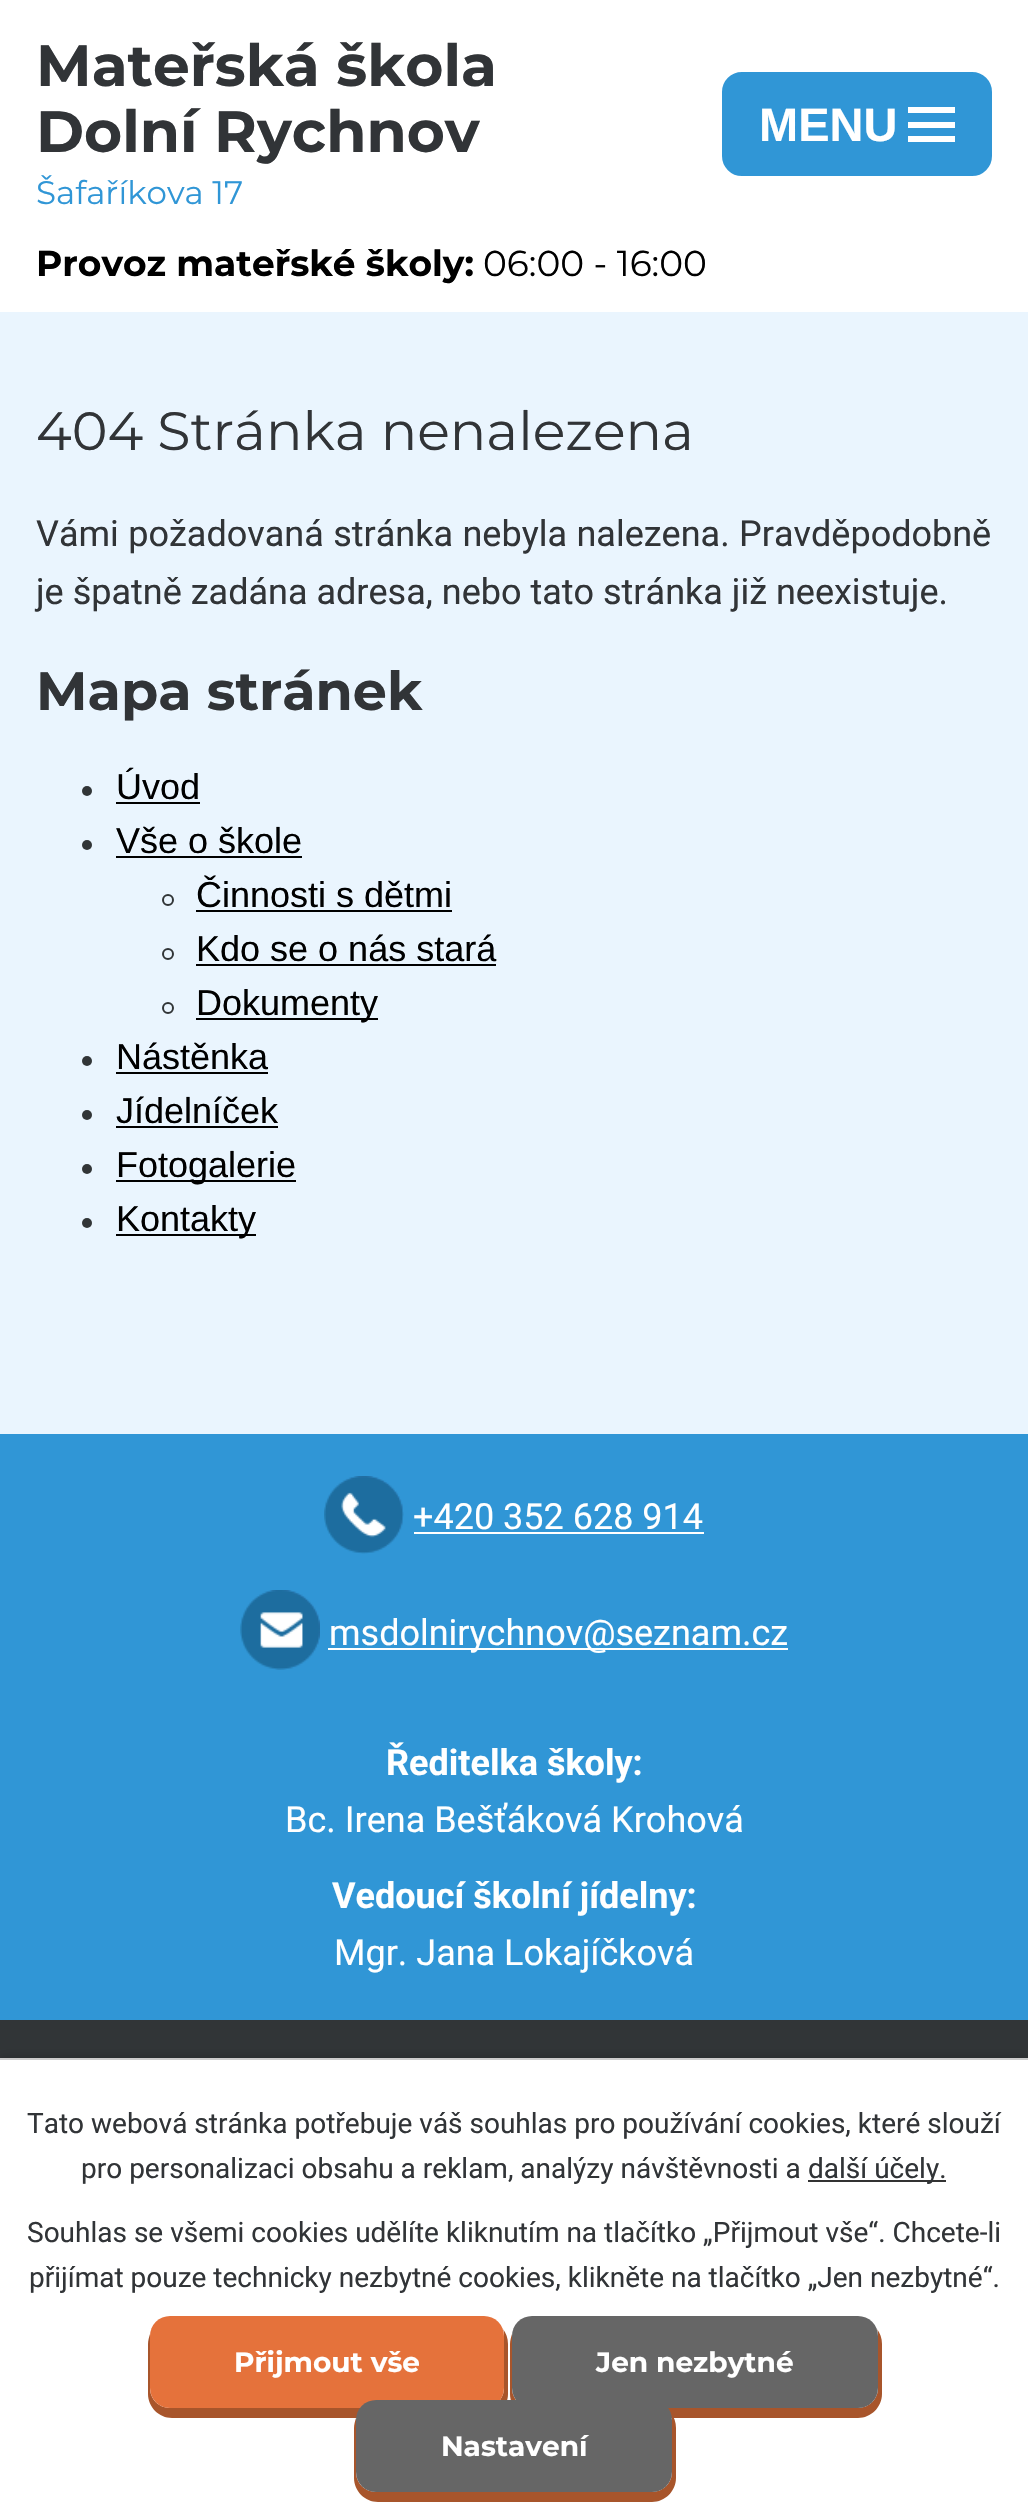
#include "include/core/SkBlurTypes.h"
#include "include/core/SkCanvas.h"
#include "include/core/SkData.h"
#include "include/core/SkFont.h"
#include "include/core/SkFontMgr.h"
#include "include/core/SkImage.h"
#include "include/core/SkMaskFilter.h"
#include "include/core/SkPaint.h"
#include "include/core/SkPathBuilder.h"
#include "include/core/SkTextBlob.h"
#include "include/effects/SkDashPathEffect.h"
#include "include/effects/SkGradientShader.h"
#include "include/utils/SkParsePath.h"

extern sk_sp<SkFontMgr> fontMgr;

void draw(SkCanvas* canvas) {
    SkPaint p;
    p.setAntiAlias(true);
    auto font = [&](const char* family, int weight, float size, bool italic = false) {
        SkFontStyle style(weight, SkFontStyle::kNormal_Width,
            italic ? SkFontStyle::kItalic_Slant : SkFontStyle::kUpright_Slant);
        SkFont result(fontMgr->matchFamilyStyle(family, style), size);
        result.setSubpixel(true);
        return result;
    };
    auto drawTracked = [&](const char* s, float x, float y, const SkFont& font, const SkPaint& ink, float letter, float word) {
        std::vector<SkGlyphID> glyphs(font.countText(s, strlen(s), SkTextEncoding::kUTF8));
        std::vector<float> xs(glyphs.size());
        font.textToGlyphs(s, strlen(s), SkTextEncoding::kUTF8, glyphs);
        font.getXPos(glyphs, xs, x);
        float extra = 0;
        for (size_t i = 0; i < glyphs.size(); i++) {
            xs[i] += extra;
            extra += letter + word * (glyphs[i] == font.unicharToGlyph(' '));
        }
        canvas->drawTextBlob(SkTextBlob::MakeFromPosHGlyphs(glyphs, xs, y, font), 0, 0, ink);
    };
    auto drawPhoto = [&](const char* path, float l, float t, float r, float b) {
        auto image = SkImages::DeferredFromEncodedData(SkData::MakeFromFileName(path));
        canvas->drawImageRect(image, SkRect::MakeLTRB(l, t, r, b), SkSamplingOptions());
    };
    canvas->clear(0xFFEAF5FE);
    p.setColor(0xFFFFFFFF);
    canvas->drawRect(SkRect::MakeLTRB(0, 0, 1028, 312), p);
    auto font1 = font("Montserrat", 700, 58.25f);
    p.setColor(0xFF313437);
    canvas->drawString("Mateřská škola", 36, 86, font1, p);
    canvas->drawString("Dolní Rychnov", 36, 152, font1, p);
    auto font2 = font("Montserrat", 400, 32.5f);
    p.setColor(0xFF3096D6);
    canvas->drawString("Šafaříkova 17", 36, 204, font2, p);
    auto font3 = font("Montserrat", 700, 36);
    p.setColor(0xFF000000);
    canvas->drawString("Provoz mateřské školy:", 36, 276, font3, p);
    auto font4 = font("Montserrat", 400, 36);
    canvas->drawString("06:00 - 16:00", 483, 276, font4, p);
    p.setColor(0xFF3096D6);
    canvas->drawRoundRect(SkRect::MakeLTRB(723, 73, 991, 175), 19, 19, p);
    p.setStyle(SkPaint::kStroke_Style);
    p.setStrokeWidth(2);
    canvas->drawRoundRect(SkRect::MakeLTRB(723, 73, 991, 175), 19, 19, p);
    auto font5 = font("Liberation Sans", 700, 47);
    p.setStyle(SkPaint::kFill_Style);
    p.setColor(0xFFFFFFFF);
    canvas->drawString("MENU", 759, 141, font5, p);
    canvas->drawPath(SkPathBuilder().moveTo(908, 142).lineTo(908, 136).lineTo(955, 136).lineTo(955, 142).close().moveTo(908, 107).lineTo(955, 107).lineTo(955, 113).lineTo(908, 113).close().moveTo(908, 128).lineTo(908, 122).lineTo(955, 122).lineTo(955, 128).close().detach(), p);
    auto font6 = font("Montserrat", 400, 54);
    p.setColor(0xFF313437);
    canvas->drawString("404 Stránka nenalezena", 36, 450, font6, p);
    auto font7 = font("Roboto", 400, 36);
    drawTracked("Vámi požadovaná stránka nebyla nalezena. Pravděpodobně", 36, 546, font7, p, 0, 0.5f);
    canvas->drawString("je špatně zadána adresa, nebo tato stránka již neexistuje.", 36, 604, font7, p);
    auto font8 = font("Montserrat", 700, 54);
    canvas->drawString("Mapa stránek", 36, 710, font8, p);
    p.setColor(0xFF313537);
    canvas->drawCircle(87, 791, 5, p);
    auto font9 = font("Liberation Sans", 400, 36);
    p.setColor(0xFF000000);
    canvas->drawString("Úvod", 116, 799, font9, p);
    canvas->drawRect(SkRect::MakeLTRB(116, 802, 200, 804), p);
    p.setColor(0xFF313537);
    canvas->drawCircle(87, 845, 5, p);
    p.setColor(0xFF000000);
    canvas->drawString("Vše o škole", 116, 853, font9, p);
    canvas->drawRect(SkRect::MakeLTRB(116, 856, 302, 858), p);
    p.setStyle(SkPaint::kStroke_Style);
    p.setColor(0xFF313537);
    canvas->drawCircle(168, 900, 5, p);
    p.setStyle(SkPaint::kFill_Style);
    p.setColor(0xFF000000);
    canvas->drawString("Činnosti s dětmi", 196, 907, font9, p);
    canvas->drawRect(SkRect::MakeLTRB(196, 910, 452, 912), p);
    p.setStyle(SkPaint::kStroke_Style);
    p.setColor(0xFF313537);
    canvas->drawCircle(168, 954, 5, p);
    p.setStyle(SkPaint::kFill_Style);
    p.setColor(0xFF000000);
    canvas->drawString("Kdo se o nás stará", 196, 961, font9, p);
    canvas->drawRect(SkRect::MakeLTRB(196, 964, 496, 966), p);
    p.setStyle(SkPaint::kStroke_Style);
    p.setColor(0xFF313537);
    canvas->drawCircle(168, 1008, 5, p);
    p.setStyle(SkPaint::kFill_Style);
    p.setColor(0xFF000000);
    canvas->drawRect(SkRect::MakeLTRB(196, 1018, 378, 1020), p);
    canvas->drawString("Dokumenty", 196, 1015, font9, p);
    p.setColor(0xFF313537);
    canvas->drawCircle(87, 1061, 5, p);
    p.setColor(0xFF000000);
    canvas->drawString("Nástěnka", 116, 1069, font9, p);
    canvas->drawRect(SkRect::MakeLTRB(116, 1072, 268, 1074), p);
    p.setColor(0xFF313537);
    canvas->drawCircle(87, 1115, 5, p);
    p.setColor(0xFF000000);
    canvas->drawString("Jídelníček", 116, 1123, font9, p);
    canvas->drawRect(SkRect::MakeLTRB(116, 1126, 278, 1128), p);
    p.setColor(0xFF313537);
    canvas->drawCircle(87, 1169, 5, p);
    p.setColor(0xFF000000);
    canvas->drawRect(SkRect::MakeLTRB(116, 1180, 296, 1182), p);
    canvas->drawString("Fotogalerie", 116, 1177, font9, p);
    p.setColor(0xFF313537);
    canvas->drawCircle(87, 1223, 5, p);
    p.setColor(0xFF000000);
    canvas->drawRect(SkRect::MakeLTRB(116, 1234, 256, 1236), p);
    canvas->drawString("Kontakty", 116, 1231, font9, p);
    p.setColor(0xFF3096D6);
    canvas->drawRect(SkRect::MakeLTRB(0, 1434, 1028, 2020), p);
    drawPhoto("media/1.png", 324, 1476, 404, 1554);
    p.setColor(0xFFFFFFFF);
    canvas->drawString("+420 352 628 914", 413, 1529, font7, p);
    canvas->drawRect(SkRect::MakeLTRB(414, 1532, 704, 1534), p);
    drawPhoto("media/2.png", 240, 1590, 320, 1670);
    canvas->drawRect(SkRect::MakeLTRB(328, 1648, 788, 1650), p);
    canvas->drawString("msdolnirychnov@seznam.cz", 329, 1645, font7, p);
    auto font10 = font("Roboto", 700, 36);
    canvas->drawString("Ředitelka školy:", 386, 1775, font10, p);
    canvas->drawString("Bc. Irena Bešťáková Krohová", 285, 1832, font7, p);
    canvas->drawString("Vedoucí školní jídelny:", 332, 1908, font10, p);
    canvas->drawString("Mgr. Jana Lokajíčková", 334, 1965, font7, p);
    p.setColor(0xFF313537);
    canvas->drawRect(SkRect::MakeLTRB(0, 2020, 1028, 2058), p);
    p.setColor(0x33000000);
    p.setMaskFilter(SkMaskFilter::MakeBlur(kNormal_SkBlurStyle, 5));
    canvas->drawRect(SkRect::MakeLTRB(0, 2058, 1028, 2508), p);
    p.setMaskFilter(nullptr);
    p.setColor(0xFFFFFFFF);
    canvas->drawRect(SkRect::MakeLTRB(0, 2060, 1028, 2508), p);
    p.setColor(0xFFCCCCCC);
    canvas->drawRect(SkRect::MakeLTRB(0, 2058, 1028, 2060), p);
    auto font11 = font("Roboto", 400, 28);
    p.setColor(0xFF313437);
    canvas->drawString("Tato webová stránka potřebuje váš souhlas pro používání cookies, které slouží", 27, 2133, font11, p);
    canvas->drawString("pro personalizaci obsahu a reklam, analýzy návštěvnosti a", 81, 2178, font11, p);
    p.setColor(0xFF333333);
    canvas->drawRect(SkRect::MakeLTRB(808, 2180, 946, 2182), p);
    p.setColor(0xFF313437);
    {
        const struct { const char* s; float x, y; } items[] = {
            {"další účely.", 808, 2178},
            {"Souhlas se všemi cookies udělíte kliknutím na tlačítko „Přijmout vše“. Chcete-li", 27, 2242},
            {"přijímat pouze technicky nezbytné cookies, klikněte na tlačítko „Jen nezbytné“.", 29, 2287},
        };
        for (auto [s, x, y] : items) {
            canvas->drawString(s, x, y, font11, p);
        }
    }
    p.setColor(0xFFA8552B);
    canvas->drawPath(SkPathBuilder().moveTo(150, 2334).cubicTo(149, 2337, 148, 2341, 148, 2344).lineTo(148, 2394).cubicTo(148, 2407, 159, 2418, 172, 2418).lineTo(484, 2418).cubicTo(497, 2418, 508, 2407, 508, 2394).lineTo(508, 2344).cubicTo(508, 2338, 506, 2333, 503, 2329).cubicTo(504, 2331, 504, 2334, 504, 2336).lineTo(504, 2388).cubicTo(504, 2399, 495, 2408, 484, 2408).lineTo(170, 2408).cubicTo(159, 2408, 150, 2399, 150, 2388).close().detach(), p);
    p.setColor(0xFFE5723B);
    canvas->drawRoundRect(SkRect::MakeLTRB(150, 2316, 504, 2408), 20, 20, p);
    auto font12 = font("Montserrat", 700, 28);
    p.setColor(0xFFFFFFFF);
    canvas->drawString("Přijmout vše", 234, 2372, font12, p);
    p.setColor(0xFFA8552B);
    canvas->drawPath(SkPathBuilder().moveTo(512, 2334).cubicTo(511, 2337, 510, 2341, 510, 2344).lineTo(510, 2394).cubicTo(510, 2407, 521, 2418, 534, 2418).lineTo(858, 2418).cubicTo(871, 2418, 882, 2407, 882, 2394).lineTo(882, 2344).cubicTo(882, 2338, 880, 2333, 877, 2329).cubicTo(878, 2331, 878, 2334, 878, 2336).lineTo(878, 2388).cubicTo(878, 2399, 869, 2408, 858, 2408).lineTo(532, 2408).cubicTo(521, 2408, 512, 2399, 512, 2388).close().detach(), p);
    p.setColor(0xFF666666);
    canvas->drawRoundRect(SkRect::MakeLTRB(512, 2316, 878, 2408), 20, 20, p);
    p.setColor(0xFFFFFFFF);
    canvas->drawString("Jen nezbytné", 596, 2372, font12, p);
    p.setColor(0xFFA8552B);
    canvas->drawPath(SkPathBuilder().moveTo(356, 2418).cubicTo(355, 2421, 354, 2425, 354, 2428).lineTo(354, 2478).cubicTo(354, 2491, 365, 2502, 378, 2502).lineTo(652, 2502).cubicTo(665, 2502, 676, 2491, 676, 2478).lineTo(676, 2428).cubicTo(676, 2422, 674, 2417, 671, 2413).cubicTo(672, 2415, 672, 2418, 672, 2420).lineTo(672, 2472).cubicTo(672, 2483, 663, 2492, 652, 2492).lineTo(376, 2492).cubicTo(365, 2492, 356, 2483, 356, 2472).close().detach(), p);
    p.setColor(0xFF666666);
    canvas->drawRoundRect(SkRect::MakeLTRB(356, 2400, 672, 2492), 20, 20, p);
    p.setColor(0xFFFFFFFF);
    canvas->drawString("Nastavení", 441, 2456, font12, p);
}
